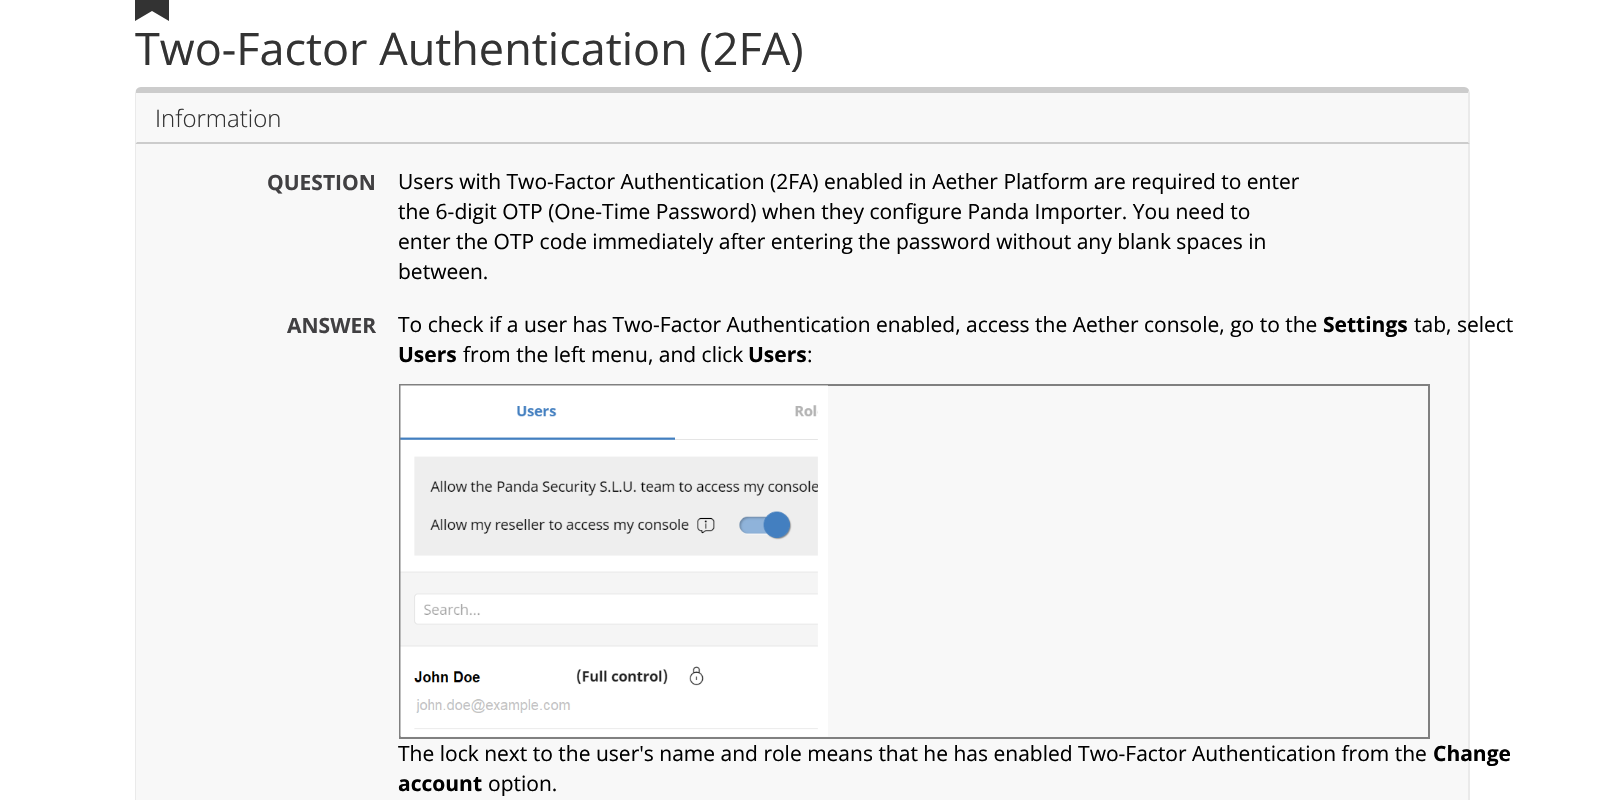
#include "include/core/SkBlurTypes.h"
#include "include/core/SkCanvas.h"
#include "include/core/SkData.h"
#include "include/core/SkFont.h"
#include "include/core/SkFontMgr.h"
#include "include/core/SkImage.h"
#include "include/core/SkMaskFilter.h"
#include "include/core/SkPaint.h"
#include "include/core/SkPathBuilder.h"
#include "include/core/SkTextBlob.h"
#include "include/effects/SkDashPathEffect.h"
#include "include/effects/SkGradientShader.h"
#include "include/utils/SkParsePath.h"

extern sk_sp<SkFontMgr> fontMgr;

void draw(SkCanvas* canvas) {
    SkPaint p;
    p.setAntiAlias(true);
    auto font = [&](const char* family, int weight, float size, bool italic = false) {
        SkFontStyle style(weight, SkFontStyle::kNormal_Width,
            italic ? SkFontStyle::kItalic_Slant : SkFontStyle::kUpright_Slant);
        SkFont result(fontMgr->matchFamilyStyle(family, style), size);
        result.setSubpixel(true);
        return result;
    };
    auto drawPhoto = [&](const char* path, float l, float t, float r, float b) {
        auto image = SkImages::DeferredFromEncodedData(SkData::MakeFromFileName(path));
        canvas->drawImageRect(image, SkRect::MakeLTRB(l, t, r, b), SkSamplingOptions());
    };
    canvas->clear(0xFFFFFFFF);
    p.setColor(0xFF333333);
    canvas->drawPath(SkPathBuilder().moveTo(135, 21).lineTo(135, -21).cubicTo(136, -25, 140, -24, 143, -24).lineTo(160, -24).cubicTo(163, -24, 168, -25, 169, -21).lineTo(169, 21).lineTo(152, 11).close().detach(), p);
    auto font1 = font("Open Sans", 400, 45);
    canvas->drawString("Two-Factor Authentication (2FA)", 135, 65, font1, p);
    p.setColor(0xFFF8F8F8);
    canvas->drawPath(SkPathBuilder().moveTo(141, 93).lineTo(1468, 93).lineTo(1468, 142).lineTo(136, 142).lineTo(136, 93).close().detach(), p);
    p.setColor(0xFFCCCCCC);
    canvas->drawPath(SkPathBuilder().moveTo(141, 87).cubicTo(139, 87, 137, 88, 136, 90).lineTo(136, 93).lineTo(1468, 93).lineTo(1468, 95).lineTo(1469, 90).cubicTo(1468, 88, 1466, 87, 1464, 87).close().detach(), p);
    p.setColor(0xFFEAEAEA);
    canvas->drawPath(SkPathBuilder().moveTo(1470, 144).lineTo(1470, 93).lineTo(1469, 90).lineTo(1468, 95).lineTo(1468, 142).close().detach(), p);
    p.setColor(0xFFCCCCCC);
    canvas->drawPath(SkPathBuilder().moveTo(1470, 144).lineTo(1468, 142).lineTo(137, 142).lineTo(135, 144).close().detach(), p);
    p.setColor(0xFFEAEAEA);
    canvas->drawPath(SkPathBuilder().moveTo(135, 144).lineTo(137, 142).lineTo(136, 142).lineTo(136, 93).lineTo(136, 90).lineTo(135, 93).close().detach(), p);
    auto font2 = font("Open Sans", 300, 24);
    p.setColor(0xFF333333);
    canvas->drawString("Information", 155, 127, font2, p);
    p.setColor(0xFFF8F8F8);
    canvas->drawRect(SkRect::MakeLTRB(136, 144, 1468, 800), p);
    p.setColor(0xFFEAEAEA);
    canvas->drawPath(SkPathBuilder(SkPathFillType::kEvenOdd).moveTo(135, 144).lineTo(1470, 144).lineTo(1470, 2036).cubicTo(1470, 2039, 1467, 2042, 1464, 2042).lineTo(141, 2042).cubicTo(138, 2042, 135, 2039, 135, 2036).close().moveTo(136, 144).lineTo(1468, 144).lineTo(1468, 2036).cubicTo(1468, 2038, 1466, 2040, 1464, 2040).lineTo(141, 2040).cubicTo(139, 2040, 136, 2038, 136, 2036).close().detach(), p);
    auto font3 = font("Open Sans", 700, 21);
    p.setColor(0xFF414042);
    canvas->drawString("QUESTION", 267, 190, font3, p);
    auto font4 = font("Open Sans", 400, 21);
    p.setColor(0xFF000000);
    {
        const struct { const char* s; float x, y; } items[] = {
            {"Users with Two-Factor Authentication (2FA) enabled in Aether Platform are required to enter", 398, 189},
            {"the 6-digit OTP (One-Time Password) when they configure Panda Importer. You need to", 398, 219},
            {"enter the OTP code immediately after entering the password without any blank spaces in", 398, 249},
            {"between.", 398, 279},
        };
        for (auto [s, x, y] : items) {
            canvas->drawString(s, x, y, font4, p);
        }
    }
    p.setColor(0xFF414042);
    canvas->drawString("ANSWER", 287, 333, font3, p);
    p.setColor(0xFF000000);
    canvas->drawString("To check if a user has Two-Factor Authentication enabled, access the Aether console, go to the", 398, 332, font4, p);
    canvas->drawString("Settings", 1323, 332, font3, p);
    canvas->drawString("tab, select", 1414, 332, font4, p);
    canvas->drawString("Users", 398, 362, font3, p);
    canvas->drawString("from the left menu, and click", 463, 362, font4, p);
    canvas->drawString("Users", 748, 362, font3, p);
    canvas->drawString(":", 807, 362, font4, p);
    {
        const struct { float l, t, r, b; SkColor color; } items[] = {
            {399, 384, 1430, 386, 0xFF808080},
            {1428, 384, 1430, 738, 0xFF808080},
            {399, 737, 1430, 739, 0xFF808080},
            {399, 384, 401, 738, 0xFF808080},
        };
        for (auto [l, t, r, b, color] : items) {
            p.setColor(color);
            canvas->drawRect(SkRect::MakeLTRB(l, t, r, b), p);
        }
    }
    drawPhoto("media/1.png", 400, 385, 828, 737);
    p.setColor(0xFF000000);
    canvas->drawString("The lock next to the user's name and role means that he has enabled Two-Factor Authentication from the", 398, 761, font4, p);
    canvas->drawString("Change", 1433, 761, font3, p);
    canvas->drawString("account", 398, 791, font3, p);
    canvas->drawString("option.", 488, 791, font4, p);
}
